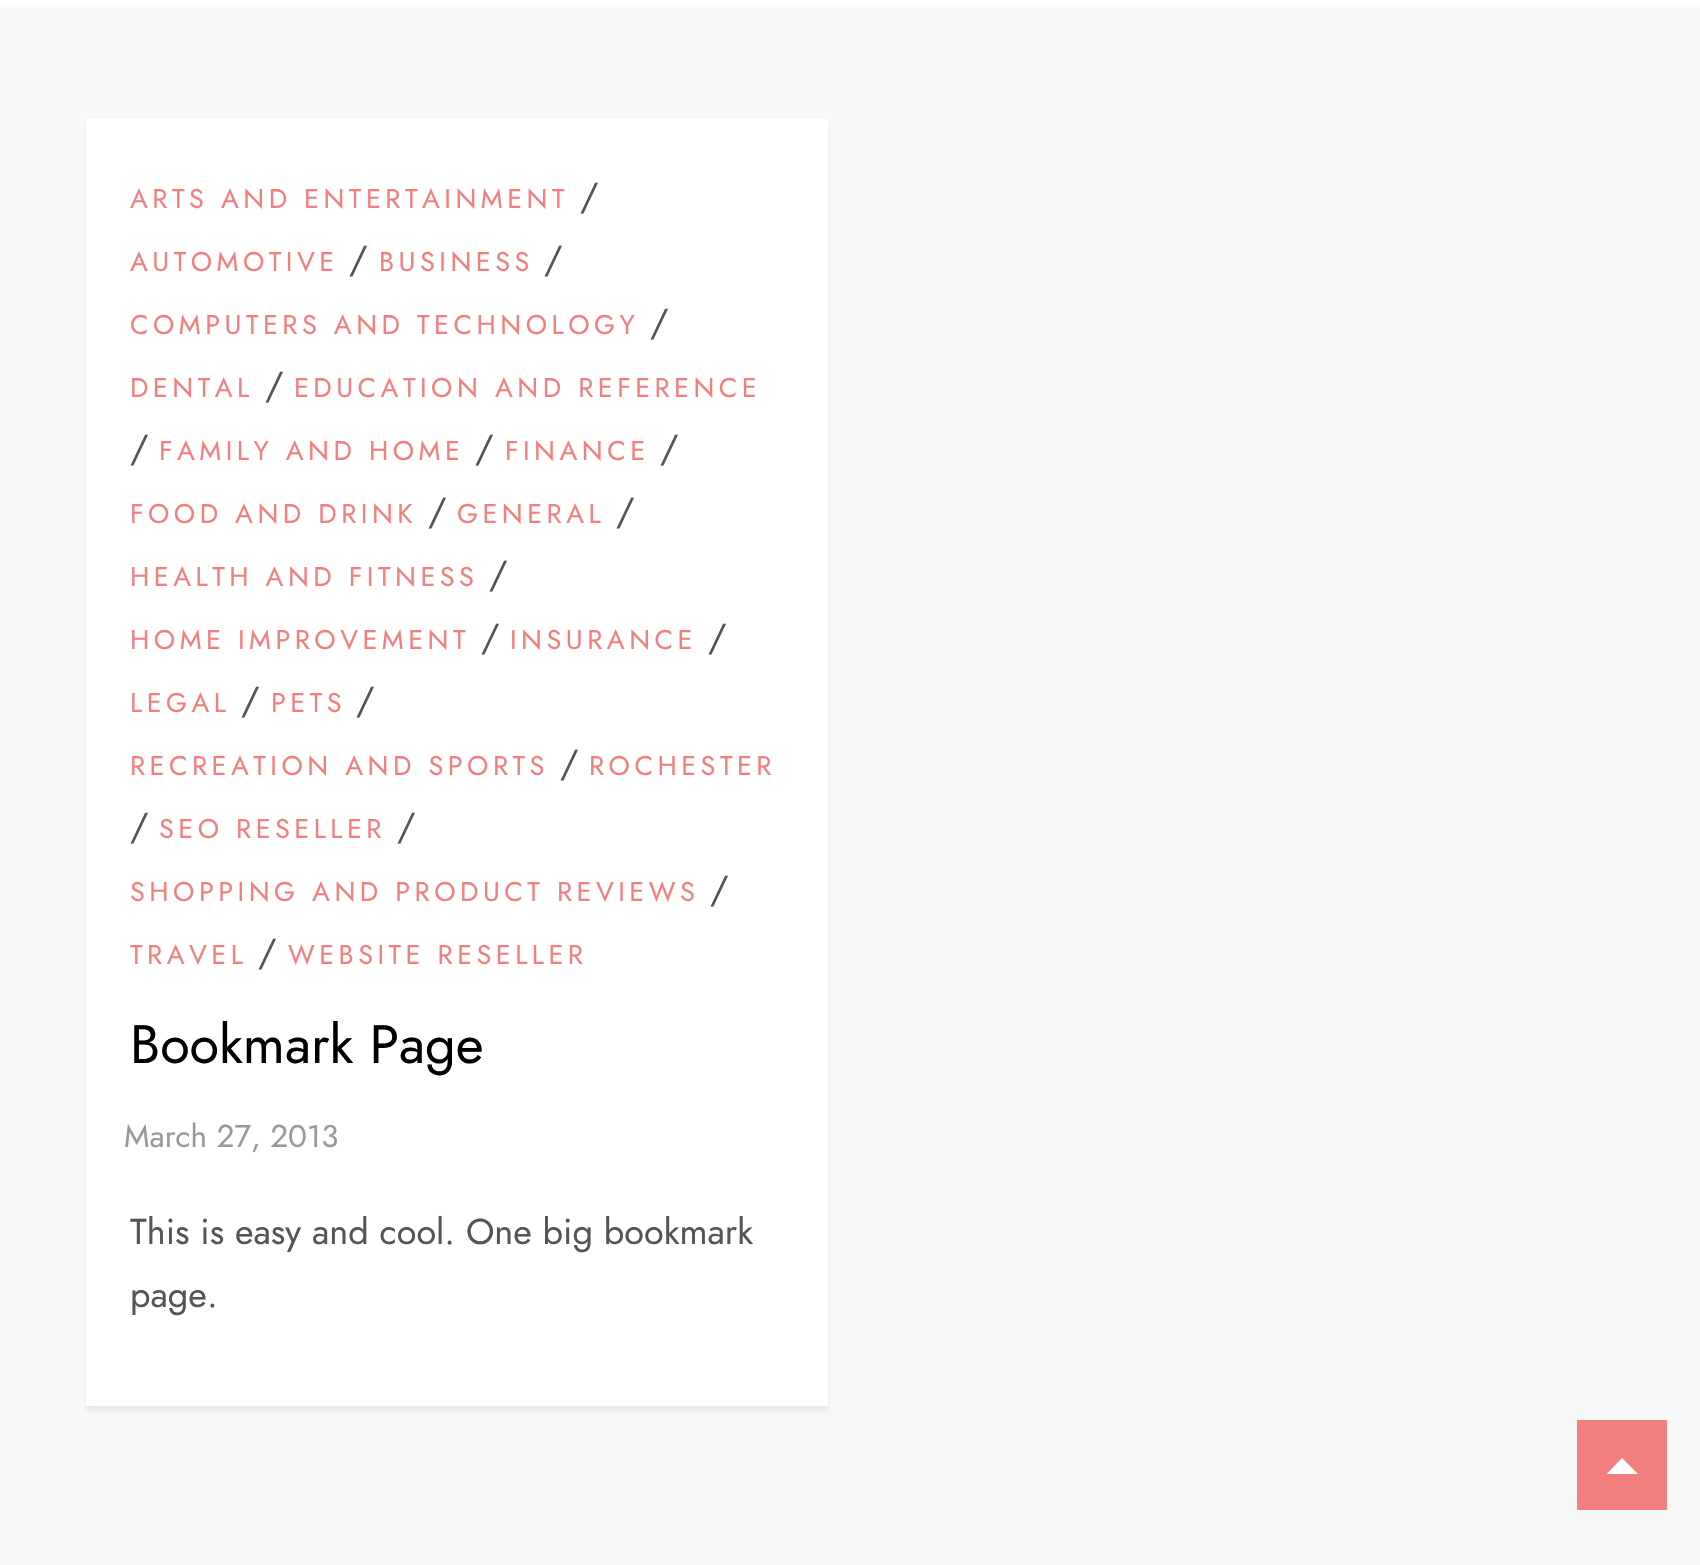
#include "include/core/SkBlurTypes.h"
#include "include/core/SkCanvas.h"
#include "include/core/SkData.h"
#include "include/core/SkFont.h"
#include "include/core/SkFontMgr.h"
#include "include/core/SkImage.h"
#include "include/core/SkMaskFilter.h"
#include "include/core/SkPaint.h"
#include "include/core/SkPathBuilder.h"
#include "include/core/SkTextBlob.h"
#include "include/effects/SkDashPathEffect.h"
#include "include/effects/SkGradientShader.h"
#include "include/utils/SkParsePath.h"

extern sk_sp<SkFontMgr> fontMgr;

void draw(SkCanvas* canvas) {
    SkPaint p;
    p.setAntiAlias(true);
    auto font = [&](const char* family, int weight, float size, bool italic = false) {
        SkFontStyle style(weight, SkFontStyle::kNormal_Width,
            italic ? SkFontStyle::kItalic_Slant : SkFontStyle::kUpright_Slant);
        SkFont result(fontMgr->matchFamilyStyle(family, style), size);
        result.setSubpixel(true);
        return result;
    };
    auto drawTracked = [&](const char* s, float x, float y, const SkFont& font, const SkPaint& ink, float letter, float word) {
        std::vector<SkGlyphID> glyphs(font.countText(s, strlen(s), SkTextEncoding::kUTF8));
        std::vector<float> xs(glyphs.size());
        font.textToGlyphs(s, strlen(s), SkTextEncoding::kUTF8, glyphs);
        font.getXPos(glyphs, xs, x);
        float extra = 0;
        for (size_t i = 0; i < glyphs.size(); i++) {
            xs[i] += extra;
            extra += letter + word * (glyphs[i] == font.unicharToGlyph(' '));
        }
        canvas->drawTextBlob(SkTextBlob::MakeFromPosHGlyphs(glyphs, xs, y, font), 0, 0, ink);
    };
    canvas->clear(0xFFF8F8F8);
    p.setColor(0xFFFFFFFF);
    canvas->drawRect(SkRect::MakeLTRB(0, 0, 1700, 7), p);
    p.setColor(0x0F000000);
    p.setMaskFilter(SkMaskFilter::MakeBlur(kNormal_SkBlurStyle, 2));
    canvas->drawRect(SkRect::MakeLTRB(86, 124, 828, 1411), p);
    p.setMaskFilter(nullptr);
    p.setColor(0xFFFFFFFF);
    canvas->drawRect(SkRect::MakeLTRB(86, 119, 828, 1406), p);
    auto font1 = font("Jost", 400, 27);
    p.setColor(0xFFF37E7E);
    drawTracked("ARTS AND ENTERTAINMENT", 130, 208, font1, p, 4.5f, 0);
    auto font2 = font("Jost", 400, 36);
    p.setColor(0xFF555555);
    canvas->drawString("/", 580, 208, font2, p);
    p.setColor(0xFFF37E7E);
    drawTracked("AUTOMOTIVE", 130, 271, font1, p, 4.5f, 0);
    p.setColor(0xFF555555);
    canvas->drawString("/", 349, 271, font2, p);
    p.setColor(0xFFF37E7E);
    drawTracked("BUSINESS", 379, 271, font1, p, 4.5f, 0);
    p.setColor(0xFF555555);
    canvas->drawString("/", 544, 271, font2, p);
    p.setColor(0xFFF37E7E);
    drawTracked("COMPUTERS AND TECHNOLOGY", 130, 334, font1, p, 4.5f, 0);
    p.setColor(0xFF555555);
    canvas->drawString("/", 650, 334, font2, p);
    p.setColor(0xFFF37E7E);
    drawTracked("DENTAL", 130, 397, font1, p, 4.5f, 0);
    p.setColor(0xFF555555);
    canvas->drawString("/", 265, 397, font2, p);
    p.setColor(0xFFF37E7E);
    drawTracked("EDUCATION AND REFERENCE", 294, 397, font1, p, 4.5f, 0);
    p.setColor(0xFF555555);
    canvas->drawString("/", 130, 460, font2, p);
    p.setColor(0xFFF37E7E);
    drawTracked("FAMILY AND HOME", 159, 460, font1, p, 4.5f, 0);
    p.setColor(0xFF555555);
    canvas->drawString("/", 475, 460, font2, p);
    p.setColor(0xFFF37E7E);
    drawTracked("FINANCE", 505, 460, font1, p, 4.5f, 0);
    p.setColor(0xFF555555);
    canvas->drawString("/", 660, 460, font2, p);
    p.setColor(0xFFF37E7E);
    drawTracked("FOOD AND DRINK", 130, 523, font1, p, 4.5f, 0);
    p.setColor(0xFF555555);
    canvas->drawString("/", 428, 523, font2, p);
    p.setColor(0xFFF37E7E);
    drawTracked("GENERAL", 457, 523, font1, p, 4.5f, 0);
    p.setColor(0xFF555555);
    canvas->drawString("/", 616, 523, font2, p);
    p.setColor(0xFFF37E7E);
    drawTracked("HEALTH AND FITNESS", 130, 586, font1, p, 4.5f, 0);
    p.setColor(0xFF555555);
    canvas->drawString("/", 489, 586, font2, p);
    p.setColor(0xFFF37E7E);
    drawTracked("HOME IMPROVEMENT", 130, 649, font1, p, 4.5f, 0);
    p.setColor(0xFF555555);
    canvas->drawString("/", 481, 649, font2, p);
    p.setColor(0xFFF37E7E);
    drawTracked("INSURANCE", 510, 649, font1, p, 4.5f, 0);
    p.setColor(0xFF555555);
    canvas->drawString("/", 708, 649, font2, p);
    p.setColor(0xFFF37E7E);
    drawTracked("LEGAL", 130, 712, font1, p, 4.5f, 0);
    p.setColor(0xFF555555);
    canvas->drawString("/", 241, 712, font2, p);
    p.setColor(0xFFF37E7E);
    drawTracked("PETS", 271, 712, font1, p, 4.5f, 0);
    p.setColor(0xFF555555);
    canvas->drawString("/", 356, 712, font2, p);
    p.setColor(0xFFF37E7E);
    drawTracked("RECREATION AND SPORTS", 130, 775, font1, p, 4.5f, 0);
    p.setColor(0xFF555555);
    canvas->drawString("/", 560, 775, font2, p);
    p.setColor(0xFFF37E7E);
    drawTracked("ROCHESTER", 589, 775, font1, p, 4.5f, 0);
    p.setColor(0xFF555555);
    canvas->drawString("/", 130, 838, font2, p);
    p.setColor(0xFFF37E7E);
    drawTracked("SEO RESELLER", 159, 838, font1, p, 4.5f, 0);
    p.setColor(0xFF555555);
    canvas->drawString("/", 397, 838, font2, p);
    p.setColor(0xFFF37E7E);
    drawTracked("SHOPPING AND PRODUCT REVIEWS", 130, 901, font1, p, 4.5f, 0);
    p.setColor(0xFF555555);
    canvas->drawString("/", 710, 901, font2, p);
    p.setColor(0xFFF37E7E);
    drawTracked("TRAVEL", 130, 964, font1, p, 4.5f, 0);
    p.setColor(0xFF555555);
    canvas->drawString("/", 258, 964, font2, p);
    p.setColor(0xFFF37E7E);
    drawTracked("WEBSITE RESELLER", 288, 964, font1, p, 4.5f, 0);
    auto font3 = font("Jost", 400, 54);
    p.setColor(0xFF000000);
    canvas->drawString("Bookmark Page", 130, 1063, font3, p);
    auto font4 = font("Jost", 400, 31.5f);
    p.setColor(0xFF999999);
    canvas->drawString("March 27, 2013", 124, 1147, font4, p);
    p.setColor(0xFF555555);
    canvas->drawString("This is easy and cool. One big bookmark", 130, 1244, font2, p);
    canvas->drawString("page.", 130, 1307, font2, p);
    p.setColor(0xFFF37E7E);
    canvas->drawRect(SkRect::MakeLTRB(1577, 1420, 1667, 1510), p);
    p.setColor(0xFFFFFFFF);
    canvas->drawPath(SkPathBuilder().moveTo(1638, 1474).lineTo(1606.5f, 1474).lineTo(1622, 1458).close().detach(), p);
}
